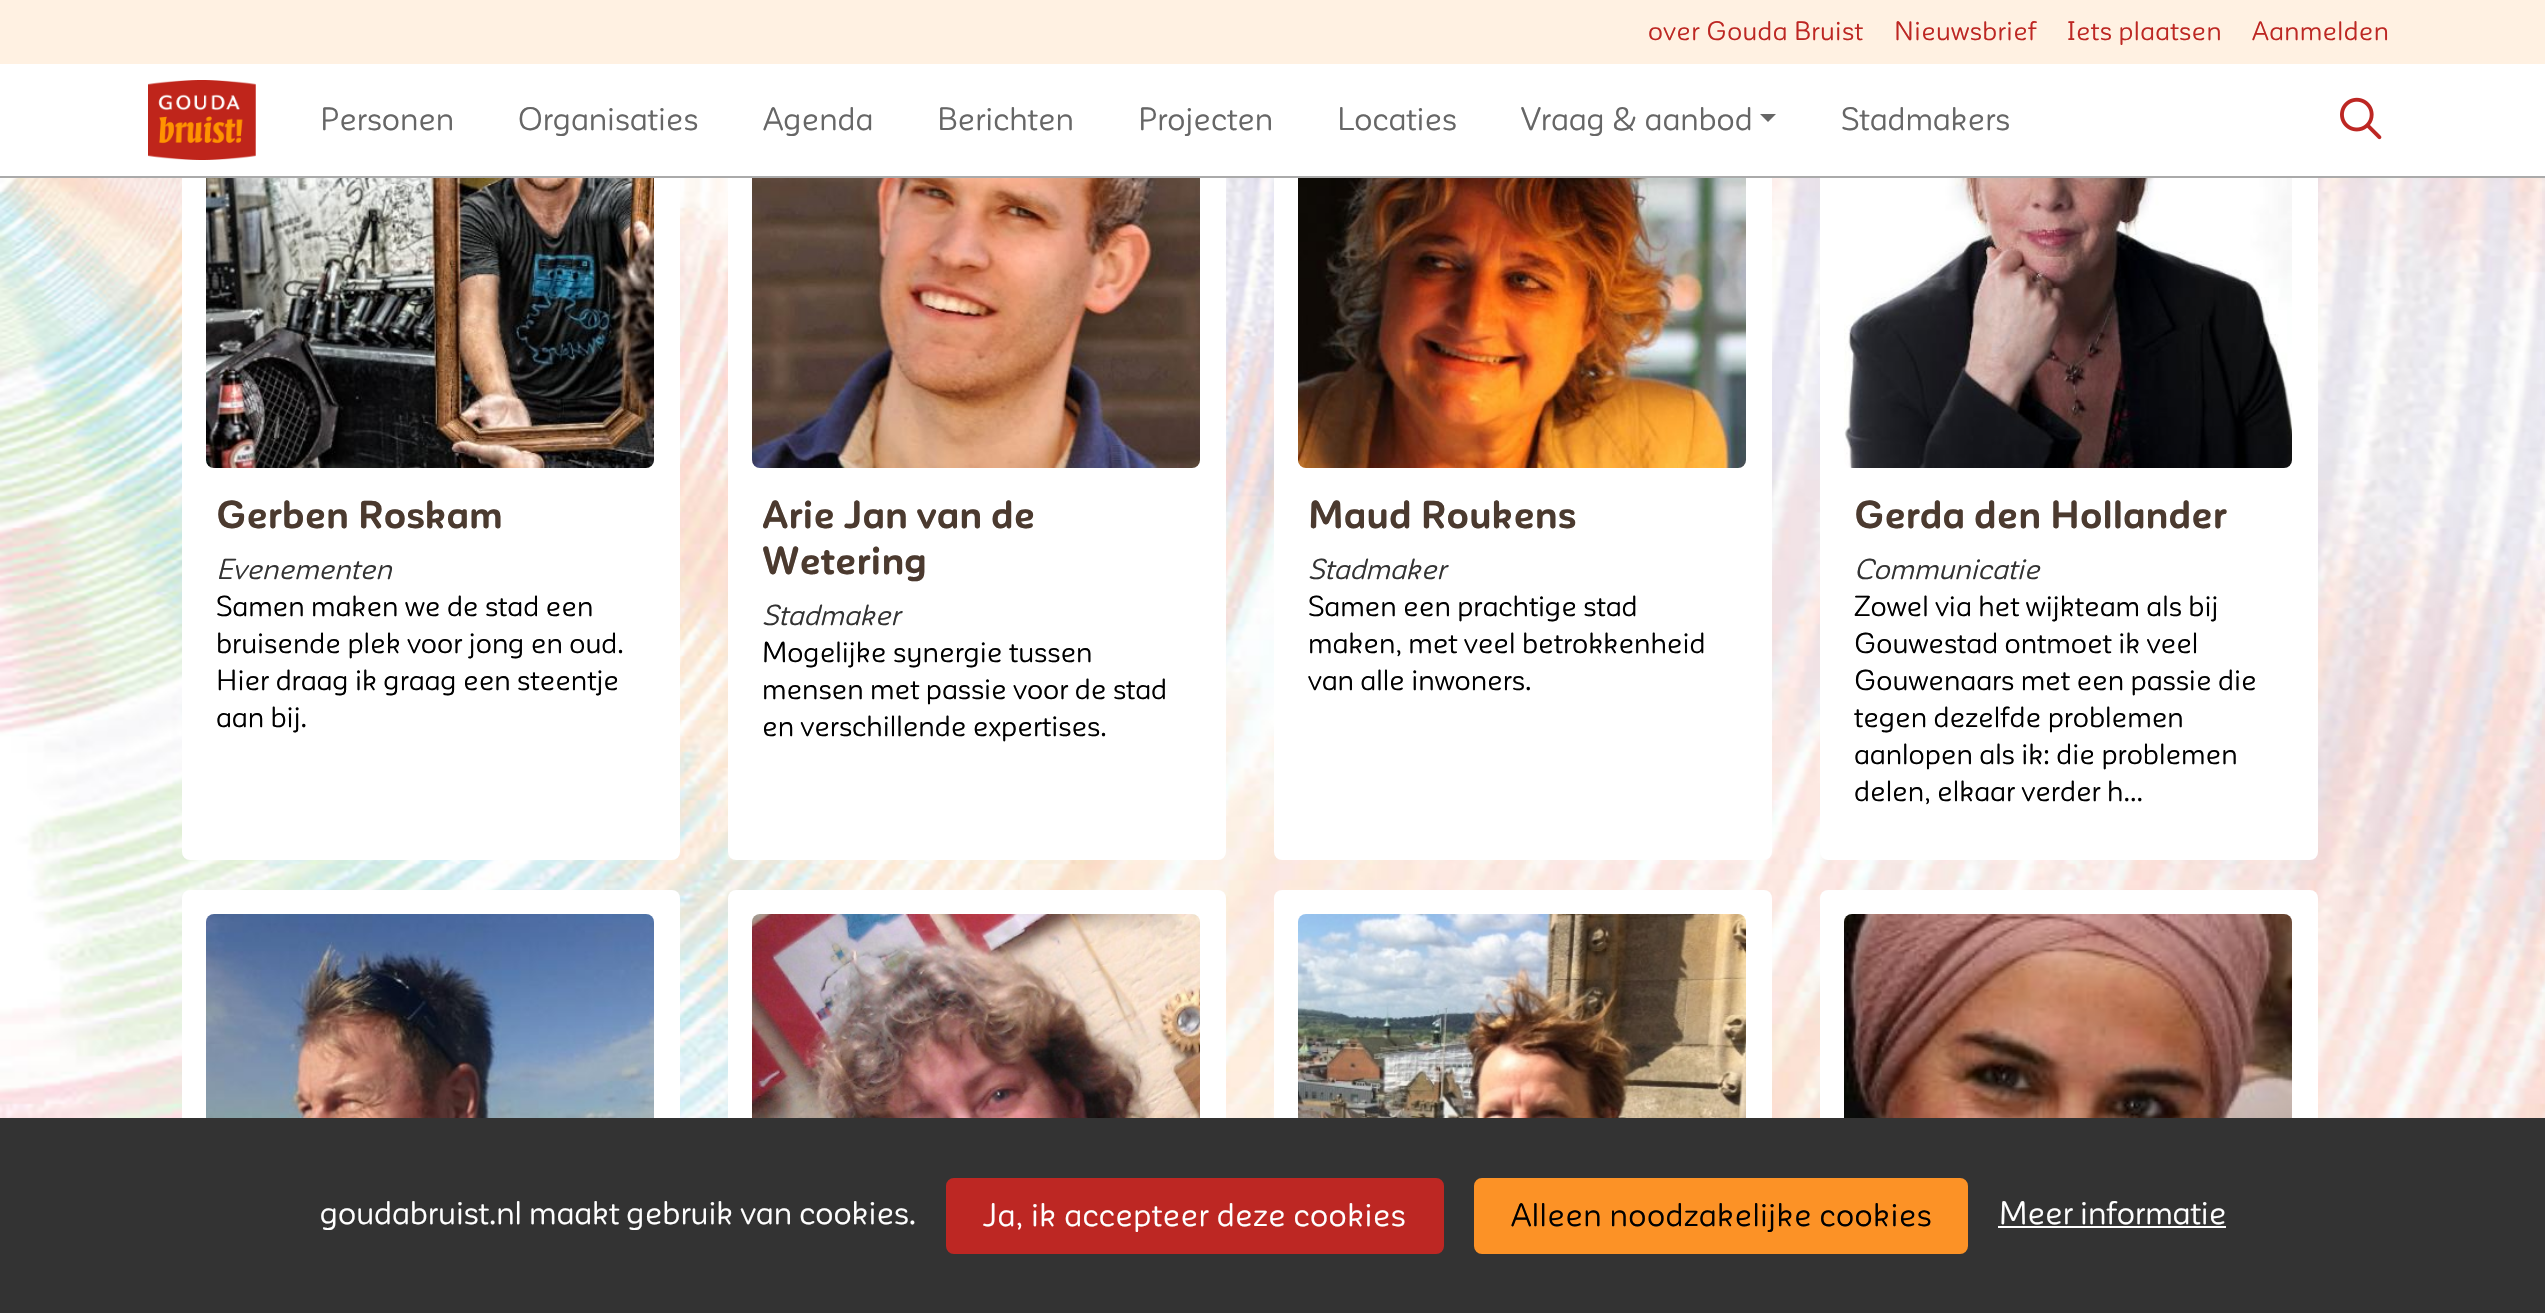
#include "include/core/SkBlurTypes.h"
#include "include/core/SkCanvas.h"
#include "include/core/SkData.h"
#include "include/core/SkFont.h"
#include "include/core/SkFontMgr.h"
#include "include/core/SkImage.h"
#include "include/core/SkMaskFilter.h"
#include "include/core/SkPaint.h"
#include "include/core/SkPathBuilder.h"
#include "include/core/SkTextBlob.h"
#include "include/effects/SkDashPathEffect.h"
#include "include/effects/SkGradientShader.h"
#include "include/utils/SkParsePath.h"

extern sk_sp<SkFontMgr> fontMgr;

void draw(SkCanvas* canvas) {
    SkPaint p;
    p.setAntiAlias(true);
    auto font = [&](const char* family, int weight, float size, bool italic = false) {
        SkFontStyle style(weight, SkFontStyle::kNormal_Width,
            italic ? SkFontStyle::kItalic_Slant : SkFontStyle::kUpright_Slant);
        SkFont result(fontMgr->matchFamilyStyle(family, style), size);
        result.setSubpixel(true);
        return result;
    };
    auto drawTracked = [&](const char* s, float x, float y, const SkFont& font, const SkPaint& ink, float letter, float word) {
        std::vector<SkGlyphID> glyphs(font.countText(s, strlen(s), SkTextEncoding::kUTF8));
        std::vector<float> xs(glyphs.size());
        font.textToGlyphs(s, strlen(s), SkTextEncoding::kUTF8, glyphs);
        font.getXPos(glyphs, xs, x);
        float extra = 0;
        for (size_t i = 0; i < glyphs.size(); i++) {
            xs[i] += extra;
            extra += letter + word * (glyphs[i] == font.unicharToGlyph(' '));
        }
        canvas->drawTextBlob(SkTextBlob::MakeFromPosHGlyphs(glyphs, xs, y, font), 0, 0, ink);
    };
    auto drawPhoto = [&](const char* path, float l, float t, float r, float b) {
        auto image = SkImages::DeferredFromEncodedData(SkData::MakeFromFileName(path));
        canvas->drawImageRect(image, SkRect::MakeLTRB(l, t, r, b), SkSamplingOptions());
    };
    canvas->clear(0xFFFFFFFF);
    drawPhoto("media/1.png", 0, 178, 2545, 1118);
    p.setColor(0xFFFFFFFF);
    canvas->drawRoundRect(SkRect::MakeLTRB(182, -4, 680, 860), 8, 8, p);
    canvas->drawRoundRect(SkRect::MakeLTRB(728, -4, 1226, 860), 8, 8, p);
    canvas->drawRoundRect(SkRect::MakeLTRB(1274, -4, 1772, 860), 8, 8, p);
    canvas->drawRoundRect(SkRect::MakeLTRB(1820, -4, 2318, 860), 8, 8, p);
    p.setColor(0xFFFFF1E2);
    canvas->drawRect(SkRect::MakeLTRB(0, 0, 2545, 64), p);
    auto font1 = font("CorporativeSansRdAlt", 400, 26.25f);
    p.setColor(0xFFBD2723);
    {
        const struct { const char* s; float x, y; } items[] = {
            {"over Gouda Bruist", 1648, 40},
            {"Nieuwsbrief", 1894, 40},
            {"Iets plaatsen", 2067, 40},
            {"Aanmelden", 2252, 40},
        };
        for (auto [s, x, y] : items) {
            drawTracked(s, x, y, font1, p, 0.4f, 0);
        }
    }
    p.setColor(0xFFAAAAAA);
    canvas->drawRect(SkRect::MakeLTRB(0, 176, 2545, 178), p);
    drawPhoto("media/2.png", 148, 80, 256, 160);
    auto font2 = font("CorporativeSansRdAlt", 400, 32);
    p.setColor(0xFF666666);
    {
        const struct { const char* s; float x, y; } items[] = {
            {"Personen", 320, 130},
            {"Organisaties", 518, 130},
            {"Agenda", 763, 130},
            {"Berichten", 937, 130},
            {"Projecten", 1138, 130},
            {"Locaties", 1337, 130},
            {"Vraag & aanbod", 1521, 130},
        };
        for (auto [s, x, y] : items) {
            canvas->drawString(s, x, y, font2, p);
        }
    }
    canvas->drawPath(SkPathBuilder().moveTo(1760, 114).lineTo(1776, 114).lineTo(1768, 122).close().detach(), p);
    canvas->drawString("Stadmakers", 1841, 130, font2, p);
    drawPhoto("media/3.png", 2340, 97, 2382, 140);
    drawPhoto("media/4.png", 206, 178, 654, 468);
    auto font3 = font("CorporativeSansRdAlt", 700, 38.5f);
    p.setColor(0xFF4B3A2F);
    canvas->drawString("Gerben Roskam", 216, 528, font3, p);
    auto font4 = font("CorporativeSansRdAlt", 400, 28.5f, true);
    p.setColor(0xFF333333);
    canvas->drawString("Evenementen", 216, 579, font4, p);
    auto font5 = font("CorporativeSansRdAlt", 400, 28.5f);
    p.setColor(0xFF000000);
    {
        const struct { const char* s; float x, y; } items[] = {
            {"Samen maken we de stad een", 216, 616},
            {"bruisende plek voor jong en oud.", 216, 653},
            {"Hier draag ik graag een steentje", 216, 690},
            {"aan bij.", 216, 727},
        };
        for (auto [s, x, y] : items) {
            canvas->drawString(s, x, y, font5, p);
        }
    }
    drawPhoto("media/5.png", 752, 178, 1200, 468);
    p.setColor(0xFF4B3A2F);
    canvas->drawString("Arie Jan van de", 762, 528, font3, p);
    canvas->drawString("Wetering", 762, 574, font3, p);
    p.setColor(0xFF333333);
    canvas->drawString("Stadmaker", 762, 625, font4, p);
    p.setColor(0xFF000000);
    {
        const struct { const char* s; float x, y; } items[] = {
            {"Mogelijke synergie tussen", 762, 662},
            {"mensen met passie voor de stad", 762, 699},
            {"en verschillende expertises.", 762, 736},
        };
        for (auto [s, x, y] : items) {
            canvas->drawString(s, x, y, font5, p);
        }
    }
    drawPhoto("media/6.png", 1298, 178, 1746, 468);
    p.setColor(0xFF4B3A2F);
    canvas->drawString("Maud Roukens", 1308, 528, font3, p);
    p.setColor(0xFF333333);
    canvas->drawString("Stadmaker", 1308, 579, font4, p);
    p.setColor(0xFF000000);
    {
        const struct { const char* s; float x, y; } items[] = {
            {"Samen een prachtige stad", 1308, 616},
            {"maken, met veel betrokkenheid", 1308, 653},
            {"van alle inwoners.", 1308, 690},
        };
        for (auto [s, x, y] : items) {
            canvas->drawString(s, x, y, font5, p);
        }
    }
    drawPhoto("media/7.png", 1844, 178, 2292, 468);
    p.setColor(0xFF4B3A2F);
    canvas->drawString("Gerda den Hollander", 1854, 528, font3, p);
    p.setColor(0xFF333333);
    canvas->drawString("Communicatie", 1854, 579, font4, p);
    p.setColor(0xFF000000);
    {
        const struct { const char* s; float x, y; } items[] = {
            {"Zowel via het wijkteam als bij", 1854, 616},
            {"Gouwestad ontmoet ik veel", 1854, 653},
            {"Gouwenaars met een passie die", 1854, 690},
            {"tegen dezelfde problemen", 1854, 727},
            {"aanlopen als ik: die problemen", 1854, 764},
            {"delen, elkaar verder h...", 1854, 801},
        };
        for (auto [s, x, y] : items) {
            canvas->drawString(s, x, y, font5, p);
        }
    }
    p.setColor(0xFFFFFFFF);
    canvas->drawRoundRect(SkRect::MakeLTRB(182, 890, 680, 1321), 8, 8, p);
    drawPhoto("media/8.png", 206, 914, 654, 1118);
    canvas->drawRoundRect(SkRect::MakeLTRB(728, 890, 1226, 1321), 8, 8, p);
    drawPhoto("media/9.png", 752, 914, 1200, 1118);
    canvas->drawRoundRect(SkRect::MakeLTRB(1274, 890, 1772, 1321), 8, 8, p);
    drawPhoto("media/10.png", 1298, 914, 1746, 1118);
    canvas->drawRoundRect(SkRect::MakeLTRB(1820, 890, 2318, 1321), 8, 8, p);
    drawPhoto("media/11.png", 1844, 914, 2292, 1118);
    p.setColor(0xFF333333);
    canvas->drawRect(SkRect::MakeLTRB(0, 1118, 2545, 1313), p);
    p.setColor(0xFFFFFFFF);
    canvas->drawString("goudabruist.nl maakt gebruik van cookies.", 320, 1224, font2, p);
    p.setColor(0xFFBD2723);
    canvas->drawRoundRect(SkRect::MakeLTRB(947, 1179, 1443, 1253), 7, 7, p);
    p.setStyle(SkPaint::kStroke_Style);
    p.setStrokeWidth(2);
    canvas->drawRoundRect(SkRect::MakeLTRB(947, 1179, 1443, 1253), 7, 7, p);
    p.setStyle(SkPaint::kFill_Style);
    p.setColor(0xFFFFFFFF);
    drawTracked("Ja, ik accepteer deze cookies", 983, 1226, font2, p, 0.4f, 0);
    p.setColor(0xFFFC9226);
    canvas->drawRoundRect(SkRect::MakeLTRB(1475, 1179, 1967, 1253), 7, 7, p);
    p.setStyle(SkPaint::kStroke_Style);
    canvas->drawRoundRect(SkRect::MakeLTRB(1475, 1179, 1967, 1253), 7, 7, p);
    p.setStyle(SkPaint::kFill_Style);
    p.setColor(0xFF000000);
    drawTracked("Alleen noodzakelijke cookies", 1511, 1226, font2, p, 0.4f, 0);
    p.setColor(0xFFFFFFFF);
    canvas->drawString("Meer informatie", 1999, 1224, font2, p);
    canvas->drawRect(SkRect::MakeLTRB(1998, 1226, 2226, 1228), p);
}
